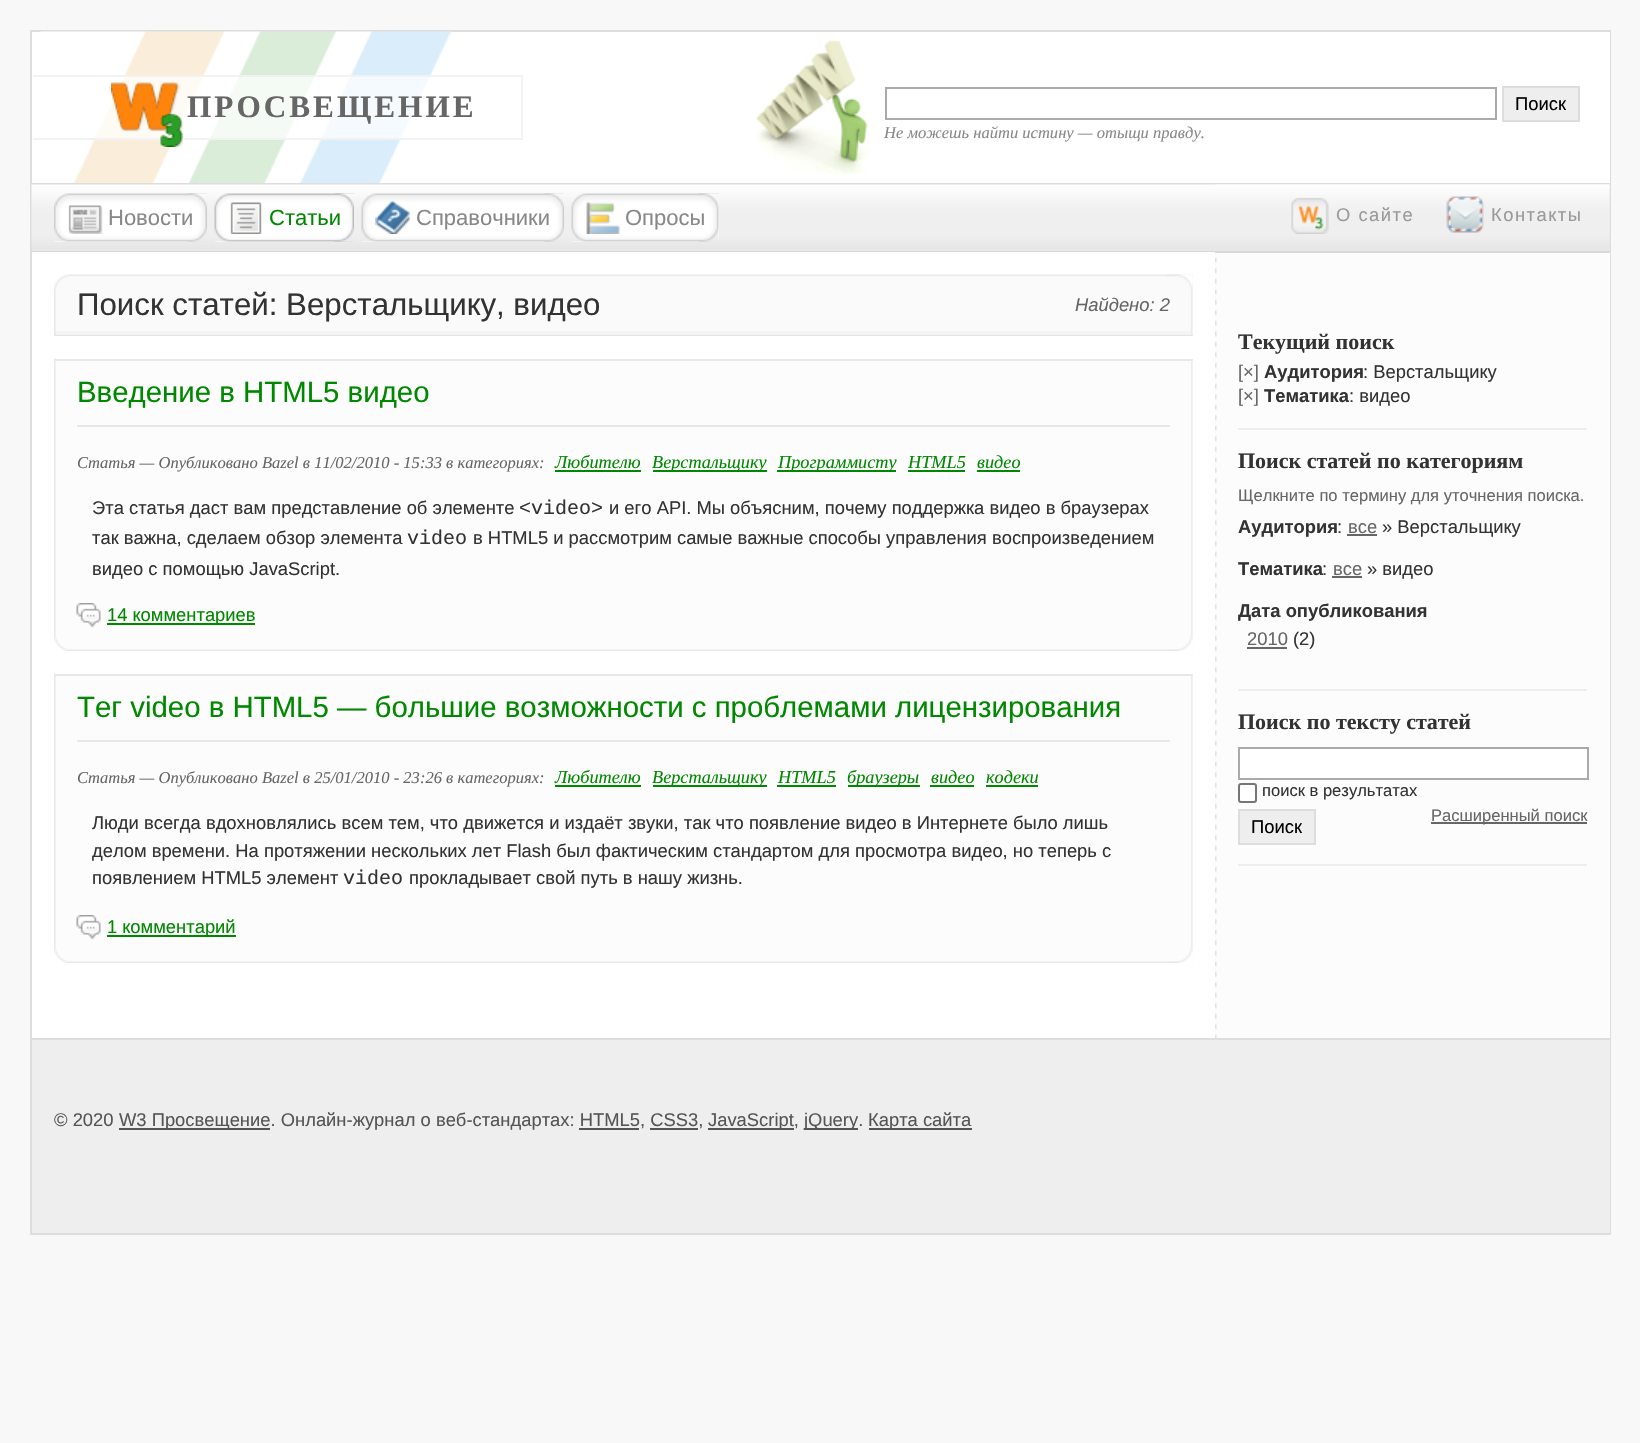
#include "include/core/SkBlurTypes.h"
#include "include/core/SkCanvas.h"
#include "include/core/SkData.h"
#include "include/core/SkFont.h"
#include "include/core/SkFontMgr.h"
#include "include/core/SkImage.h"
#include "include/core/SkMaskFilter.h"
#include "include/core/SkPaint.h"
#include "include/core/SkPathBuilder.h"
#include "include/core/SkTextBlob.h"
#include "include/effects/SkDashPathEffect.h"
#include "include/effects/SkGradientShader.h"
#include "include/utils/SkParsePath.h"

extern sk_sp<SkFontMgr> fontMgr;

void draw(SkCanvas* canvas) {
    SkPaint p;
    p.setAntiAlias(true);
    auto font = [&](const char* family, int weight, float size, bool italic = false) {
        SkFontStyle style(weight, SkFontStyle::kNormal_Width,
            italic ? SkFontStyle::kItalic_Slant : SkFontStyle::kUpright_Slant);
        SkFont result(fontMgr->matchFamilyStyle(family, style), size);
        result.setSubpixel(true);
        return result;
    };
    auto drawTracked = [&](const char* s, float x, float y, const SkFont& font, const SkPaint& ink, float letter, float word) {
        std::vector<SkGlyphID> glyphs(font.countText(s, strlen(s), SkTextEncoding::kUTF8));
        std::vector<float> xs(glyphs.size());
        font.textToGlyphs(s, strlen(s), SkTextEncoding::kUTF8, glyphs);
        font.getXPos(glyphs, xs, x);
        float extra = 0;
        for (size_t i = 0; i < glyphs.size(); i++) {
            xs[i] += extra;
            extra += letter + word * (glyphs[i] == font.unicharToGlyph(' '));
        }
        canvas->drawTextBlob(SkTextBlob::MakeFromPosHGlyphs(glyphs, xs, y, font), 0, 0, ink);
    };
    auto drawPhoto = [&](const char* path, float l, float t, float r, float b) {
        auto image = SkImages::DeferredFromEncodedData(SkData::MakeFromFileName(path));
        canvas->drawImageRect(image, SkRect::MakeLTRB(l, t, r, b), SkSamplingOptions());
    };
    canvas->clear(0xFFF8F8F8);
    p.setColor(0xFFDDDDDD);
    canvas->drawRect(SkRect::MakeLTRB(30, 30, 1611, 1235), p);
    p.setColor(0xFFFFFFFF);
    canvas->drawRect(SkRect::MakeLTRB(32, 32, 1610, 1038), p);
    drawPhoto("media/1.png", 40, 31, 452, 183);
    {
        const struct { float l, t, r, b; SkColor color; } items[] = {
            {32, 183, 1610, 185, 0xFFDDDDDD},
            {94, 75, 431, 140, 0xB3FFFFFF},
            {33, 75, 522, 77, 0xB3EEEEEE},
            {521, 75, 523, 140, 0xFFF3F3F3},
            {33, 138, 522, 140, 0xB3EEEEEE},
        };
        for (auto [l, t, r, b, color] : items) {
            p.setColor(color);
            canvas->drawRect(SkRect::MakeLTRB(l, t, r, b), p);
        }
    }
    drawPhoto("media/2.png", 111, 82, 183, 147);
    auto font1 = font("Liberation Serif", 700, 31.25f);
    p.setColor(0xFF666666);
    drawTracked("ПРОСВЕЩЕНИЕ", 187, 117, font1, p, 3, 0);
    drawPhoto("media/3.png", 755, 39, 871, 174);
    p.setStyle(SkPaint::kStroke_Style);
    p.setStrokeWidth(2);
    p.setColor(0xFFAAAAAA);
    canvas->drawRect(SkRect::MakeLTRB(886, 88, 1496, 119), p);
    p.setStyle(SkPaint::kFill_Style);
    p.setColor(0xFFEEEEEE);
    canvas->drawRect(SkRect::MakeLTRB(1503, 87, 1579, 121), p);
    p.setStyle(SkPaint::kStroke_Style);
    p.setColor(0xFFDDDDDD);
    canvas->drawRect(SkRect::MakeLTRB(1503, 87, 1579, 121), p);
    auto font2 = font("Liberation Sans", 400, 18.38f);
    p.setStyle(SkPaint::kFill_Style);
    p.setColor(0xFF000000);
    canvas->drawString("Поиск", 1515, 110, font2, p);
    auto font3 = font("Liberation Serif", 400, 16.55f, true);
    p.setColor(0xFF888888);
    canvas->drawString("Не можешь найти истину — отыщи правду.", 884, 138, font3, p);
    drawPhoto("media/4.png", 1214, 184, 1610, 1038);
    p.setColor(0xFFE7E7E7);
    canvas->drawRect(SkRect::MakeLTRB(32, 185, 1610, 251), p);
    drawPhoto("media/5.png", 31, 184, 1610, 247);
    p.setColor(0xFFD8D8D8);
    canvas->drawRect(SkRect::MakeLTRB(32, 251, 1610, 253), p);
    p.setColor(0xFFFFFFFF);
    canvas->drawRect(SkRect::MakeLTRB(54, 241, 207, 242), p);
    drawPhoto("media/6.png", 54, 193, 207, 242);
    drawPhoto("media/7.png", 187, 193, 207, 242);
    drawPhoto("media/8.png", 68, 205, 103, 234);
    auto font4 = font("Liberation Sans", 400, 22);
    p.setColor(0xFF888888);
    canvas->drawString("Новости", 108, 225, font4, p);
    p.setColor(0xFFFFFFFF);
    canvas->drawRect(SkRect::MakeLTRB(215, 241, 354, 242), p);
    drawPhoto("media/9.png", 214, 193, 354, 242);
    drawPhoto("media/10.png", 334, 193, 354, 242);
    drawPhoto("media/11.png", 230, 202, 262, 234);
    p.setColor(0xFF008800);
    canvas->drawString("Статьи", 269, 225, font4, p);
    p.setColor(0xFFFFFFFF);
    canvas->drawRect(SkRect::MakeLTRB(362, 241, 564, 242), p);
    drawPhoto("media/12.png", 361, 193, 564, 242);
    drawPhoto("media/13.png", 544, 193, 564, 242);
    drawPhoto("media/14.png", 375, 201, 411, 234);
    p.setColor(0xFF888888);
    canvas->drawString("Справочники", 416, 225, font4, p);
    p.setColor(0xFFFFFFFF);
    canvas->drawRect(SkRect::MakeLTRB(572, 194, 719, 242), p);
    drawPhoto("media/15.png", 571, 193, 719, 242);
    drawPhoto("media/16.png", 699, 193, 719, 242);
    drawPhoto("media/17.png", 586, 202, 620, 234);
    p.setColor(0xFF888888);
    canvas->drawString("Опросы", 625, 225, font4, p);
    drawPhoto("media/18.png", 1291, 197, 1329, 234);
    p.setColor(0xFF999999);
    drawTracked("О сайте", 1336, 221, font2, p, 1.5f, 0);
    drawPhoto("media/19.png", 1446, 196, 1484, 233);
    drawTracked("Контакты", 1491, 221, font2, p, 1.5f, 0);
    {
        const struct { float l, t, r, b; SkColor color; } items[] = {
            {32, 252, 1215, 336, 0xFFFFFFFF},
            {55, 275, 1193, 335, 0xFFFAFAFA},
            {54, 331, 1192, 335, 0xFFF4F4F4},
        };
        for (auto [l, t, r, b, color] : items) {
            p.setColor(color);
            canvas->drawRect(SkRect::MakeLTRB(l, t, r, b), p);
        }
    }
    drawPhoto("media/20.png", 54, 274, 1193, 335);
    drawPhoto("media/21.png", 1166, 274, 1193, 335);
    p.setColor(0xFFE4E4E4);
    canvas->drawRect(SkRect::MakeLTRB(54, 335, 1193, 336), p);
    auto font5 = font("Liberation Sans", 400, 31.25f);
    p.setColor(0xFF333333);
    canvas->drawString("Поиск статей: Верстальщику, видео", 77, 315, font5, p);
    p.setColor(0xFFFFFFFF);
    canvas->drawRect(SkRect::MakeLTRB(1214, 342, 1215, 1038), p);
    auto font6 = font("Liberation Sans", 400, 18.38f, true);
    p.setColor(0xFF666666);
    canvas->drawString("Найдено: 2", 1075, 311, font6, p);
    p.setColor(0xFFFCFCFC);
    canvas->drawRect(SkRect::MakeLTRB(55, 361, 1193, 651), p);
    drawPhoto("media/22.png", 54, 358, 1193, 651);
    p.setColor(0xFFE8E8E8);
    canvas->drawRect(SkRect::MakeLTRB(54, 359, 1193, 361), p);
    drawPhoto("media/23.png", 1170, 361, 1193, 651);
    canvas->drawRect(SkRect::MakeLTRB(77, 425, 1170, 427), p);
    auto font7 = font("Liberation Sans", 400, 29.4f);
    p.setColor(0xFF008800);
    canvas->drawString("Введение в HTML5 видео", 77, 402, font7, p);
    p.setColor(0xFF666666);
    canvas->drawString("Статья — Опубликовано Bazel в 11/02/2010 - 15:33 в категориях:", 77, 468, font3, p);
    auto font8 = font("Liberation Serif", 400, 18.25f, true);
    p.setColor(0xFF008800);
    canvas->drawString("Любителю", 555, 468, font8, p);
    canvas->drawRect(SkRect::MakeLTRB(555, 470, 641, 472), p);
    canvas->drawRect(SkRect::MakeLTRB(653, 470, 767, 472), p);
    canvas->drawString("Верстальщику", 652, 468, font8, p);
    canvas->drawRect(SkRect::MakeLTRB(777, 470, 896, 472), p);
    canvas->drawString("Программисту", 778, 468, font8, p);
    canvas->drawString("HTML5", 908, 468, font8, p);
    canvas->drawRect(SkRect::MakeLTRB(908, 470, 965, 472), p);
    canvas->drawString("видео", 977, 468, font8, p);
    canvas->drawRect(SkRect::MakeLTRB(977, 470, 1020, 472), p);
    p.setColor(0xFF333333);
    canvas->drawString("Эта статья даст вам представление об элементе", 92, 514, font2, p);
    auto font9 = font("Liberation Mono", 400, 20);
    canvas->drawString("<video>", 519, 514, font9, p);
    canvas->drawString("и его API. Мы объясним, почему поддержка видео в браузерах", 609, 514, font2, p);
    canvas->drawString("так важна, сделаем обзор элемента", 92, 544, font2, p);
    canvas->drawString("video", 407, 544, font9, p);
    canvas->drawString("в HTML5 и рассмотрим самые важные способы управления воспроизведением", 473, 544, font2, p);
    canvas->drawString("видео с помощью JavaScript.", 92, 575, font2, p);
    drawPhoto("media/24.png", 76, 603, 101, 627);
    p.setColor(0xFF008800);
    canvas->drawRect(SkRect::MakeLTRB(107, 623, 255, 625), p);
    canvas->drawString("14 комментариев", 107, 621, font2, p);
    p.setColor(0xFFFCFCFC);
    canvas->drawRect(SkRect::MakeLTRB(55, 676, 1193, 963), p);
    drawPhoto("media/25.png", 54, 673, 1193, 963);
    p.setColor(0xFFE8E8E8);
    canvas->drawRect(SkRect::MakeLTRB(54, 674, 1193, 676), p);
    drawPhoto("media/26.png", 1170, 676, 1193, 963);
    canvas->drawRect(SkRect::MakeLTRB(77, 740, 1170, 742), p);
    p.setColor(0xFF008800);
    canvas->drawString("Тег video в HTML5 — большие возможности с проблемами лицензирования", 77, 717, font7, p);
    p.setColor(0xFF666666);
    canvas->drawString("Статья — Опубликовано Bazel в 25/01/2010 - 23:26 в категориях:", 77, 783, font3, p);
    p.setColor(0xFF008800);
    canvas->drawString("Любителю", 555, 783, font8, p);
    canvas->drawRect(SkRect::MakeLTRB(555, 785, 641, 787), p);
    canvas->drawRect(SkRect::MakeLTRB(653, 785, 767, 787), p);
    canvas->drawString("Верстальщику", 652, 783, font8, p);
    canvas->drawString("HTML5", 778, 783, font8, p);
    canvas->drawRect(SkRect::MakeLTRB(777, 785, 836, 787), p);
    canvas->drawRect(SkRect::MakeLTRB(848, 785, 920, 787), p);
    canvas->drawString("браузеры", 847, 783, font8, p);
    canvas->drawString("видео", 931, 783, font8, p);
    canvas->drawRect(SkRect::MakeLTRB(930, 785, 974, 787), p);
    canvas->drawString("кодеки", 986, 783, font8, p);
    canvas->drawRect(SkRect::MakeLTRB(986, 785, 1038, 787), p);
    p.setColor(0xFF333333);
    {
        const struct { const char* s; float x, y; } items[] = {
            {"Люди всегда вдохновлялись всем тем, что движется и издаёт звуки, так что появление видео в Интернете было лишь", 92, 829},
            {"делом времени. На протяжении нескольких лет Flash был фактическим стандартом для просмотра видео, но теперь с", 92, 857},
            {"появлением HTML5 элемент", 92, 884},
        };
        for (auto [s, x, y] : items) {
            canvas->drawString(s, x, y, font2, p);
        }
    }
    canvas->drawString("video", 343, 884, font9, p);
    canvas->drawString("прокладывает свой путь в нашу жизнь.", 409, 884, font2, p);
    drawPhoto("media/24.png", 76, 915, 101, 939);
    p.setColor(0xFF008800);
    canvas->drawRect(SkRect::MakeLTRB(107, 935, 236, 937), p);
    canvas->drawString("1 комментарий", 107, 933, font2, p);
    p.setColor(0xFFEEEEEE);
    canvas->drawRect(SkRect::MakeLTRB(1238, 428, 1587, 430), p);
    auto font10 = font("Liberation Serif", 700, 22);
    p.setColor(0xFF333333);
    canvas->drawString("Текущий поиск", 1238, 349, font10, p);
    p.setColor(0xFF666666);
    canvas->drawString("[×]", 1238, 378, font2, p);
    auto font11 = font("Liberation Sans", 700, 18.38f);
    p.setColor(0xFF333333);
    canvas->drawString("Аудитория", 1264, 378, font11, p);
    canvas->drawString(": Верстальщику", 1363, 378, font2, p);
    p.setColor(0xFF666666);
    canvas->drawString("[×]", 1238, 402, font2, p);
    p.setColor(0xFF333333);
    canvas->drawString("Тематика", 1264, 402, font11, p);
    canvas->drawString(": видео", 1349, 402, font2, p);
    p.setColor(0xFFEEEEEE);
    canvas->drawRect(SkRect::MakeLTRB(1238, 689, 1587, 691), p);
    p.setColor(0xFF333333);
    canvas->drawString("Поиск статей по категориям", 1238, 468, font10, p);
    auto font12 = font("Liberation Sans", 400, 16.55f);
    p.setColor(0xFF666666);
    canvas->drawString("Щелкните по термину для уточнения поиска.", 1238, 501, font12, p);
    p.setColor(0xFF333333);
    canvas->drawString("Аудитория", 1238, 533, font11, p);
    canvas->drawString(":", 1337, 533, font2, p);
    p.setColor(0xFF666666);
    canvas->drawString("все", 1348, 533, font2, p);
    canvas->drawRect(SkRect::MakeLTRB(1347, 534, 1377, 536), p);
    p.setColor(0xFF333333);
    canvas->drawString("» Верстальщику", 1382, 533, font2, p);
    canvas->drawString("Тематика", 1238, 575, font11, p);
    canvas->drawString(":", 1322, 575, font2, p);
    p.setColor(0xFF666666);
    canvas->drawString("все", 1333, 575, font2, p);
    canvas->drawRect(SkRect::MakeLTRB(1332, 576, 1362, 578), p);
    p.setColor(0xFF333333);
    canvas->drawString("» видео", 1367, 575, font2, p);
    canvas->drawString("Дата опубликования", 1238, 617, font11, p);
    p.setColor(0xFF666666);
    canvas->drawString("2010", 1247, 645, font2, p);
    canvas->drawRect(SkRect::MakeLTRB(1247, 647, 1287, 649), p);
    p.setColor(0xFF333333);
    canvas->drawString("(2)", 1293, 645, font2, p);
    p.setColor(0xFFEEEEEE);
    canvas->drawRect(SkRect::MakeLTRB(1238, 864, 1587, 866), p);
    p.setColor(0xFF333333);
    canvas->drawString("Поиск по тексту статей", 1238, 729, font10, p);
    p.setColor(0xFFFFFFFF);
    canvas->drawRect(SkRect::MakeLTRB(1239, 748, 1588, 779), p);
    p.setStyle(SkPaint::kStroke_Style);
    p.setColor(0xFFAAAAAA);
    canvas->drawRect(SkRect::MakeLTRB(1239, 748, 1588, 779), p);
    p.setStyle(SkPaint::kFill_Style);
    p.setColor(0xFFFFFFFF);
    canvas->drawRoundRect(SkRect::MakeLTRB(1239, 784, 1256, 802), 2, 2, p);
    p.setStyle(SkPaint::kStroke_Style);
    p.setColor(0xFF767676);
    canvas->drawRoundRect(SkRect::MakeLTRB(1239, 784, 1256, 802), 2, 2, p);
    p.setStyle(SkPaint::kFill_Style);
    p.setColor(0xFF333333);
    canvas->drawString("поиск в результатах", 1262, 796, font12, p);
    p.setColor(0xFF666666);
    canvas->drawRect(SkRect::MakeLTRB(1431, 822, 1587, 824), p);
    canvas->drawString("Расширенный поиск", 1431, 821, font12, p);
    p.setColor(0xFFEEEEEE);
    canvas->drawRect(SkRect::MakeLTRB(1239, 810, 1315, 844), p);
    p.setStyle(SkPaint::kStroke_Style);
    p.setColor(0xFFDDDDDD);
    canvas->drawRect(SkRect::MakeLTRB(1239, 810, 1315, 844), p);
    p.setStyle(SkPaint::kFill_Style);
    p.setColor(0xFF000000);
    canvas->drawString("Поиск", 1251, 833, font2, p);
    p.setColor(0xFFEEEEEE);
    canvas->drawRect(SkRect::MakeLTRB(32, 1040, 1610, 1233), p);
    p.setColor(0xFF555555);
    canvas->drawString("© 2020", 54, 1126, font2, p);
    canvas->drawRect(SkRect::MakeLTRB(119, 1128, 270, 1130), p);
    canvas->drawString("W3 Просвещение. Онлайн-журнал о веб-стандартах: HTML5, CSS3,", 119, 1126, font2, p);
    canvas->drawRect(SkRect::MakeLTRB(708, 1128, 794, 1130), p);
    canvas->drawString("JavaScript,", 708, 1126, font2, p);
    canvas->drawRect(SkRect::MakeLTRB(804, 1128, 858, 1130), p);
    canvas->drawString("jQuery.", 804, 1126, font2, p);
    canvas->drawRect(SkRect::MakeLTRB(869, 1128, 972, 1130), p);
    canvas->drawString("Карта сайта", 868, 1126, font2, p);
    canvas->drawRect(SkRect::MakeLTRB(579, 1128, 639, 1130), p);
    canvas->drawRect(SkRect::MakeLTRB(650, 1128, 698, 1130), p);
}
